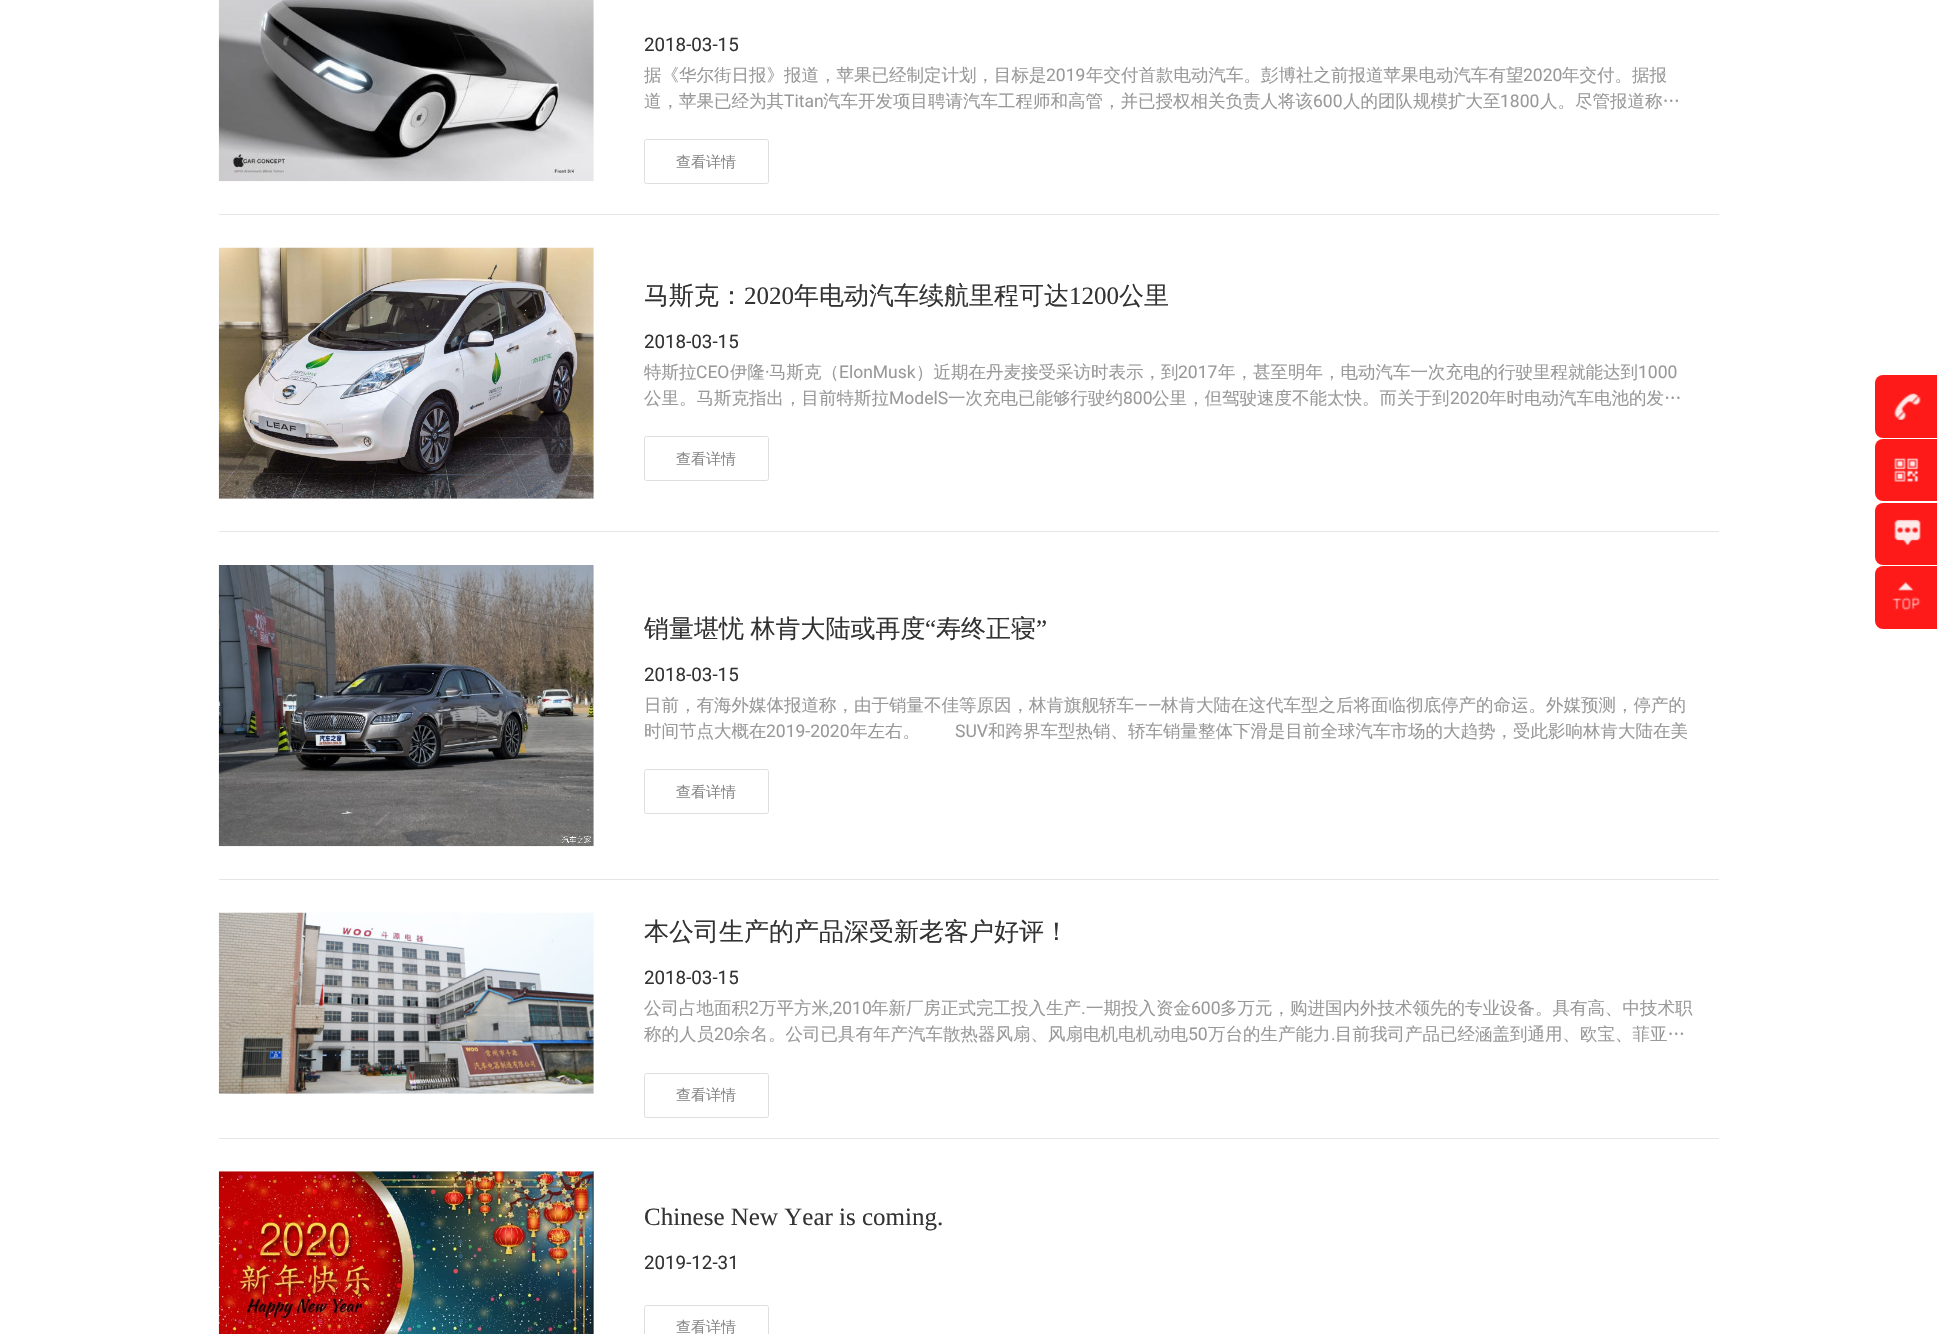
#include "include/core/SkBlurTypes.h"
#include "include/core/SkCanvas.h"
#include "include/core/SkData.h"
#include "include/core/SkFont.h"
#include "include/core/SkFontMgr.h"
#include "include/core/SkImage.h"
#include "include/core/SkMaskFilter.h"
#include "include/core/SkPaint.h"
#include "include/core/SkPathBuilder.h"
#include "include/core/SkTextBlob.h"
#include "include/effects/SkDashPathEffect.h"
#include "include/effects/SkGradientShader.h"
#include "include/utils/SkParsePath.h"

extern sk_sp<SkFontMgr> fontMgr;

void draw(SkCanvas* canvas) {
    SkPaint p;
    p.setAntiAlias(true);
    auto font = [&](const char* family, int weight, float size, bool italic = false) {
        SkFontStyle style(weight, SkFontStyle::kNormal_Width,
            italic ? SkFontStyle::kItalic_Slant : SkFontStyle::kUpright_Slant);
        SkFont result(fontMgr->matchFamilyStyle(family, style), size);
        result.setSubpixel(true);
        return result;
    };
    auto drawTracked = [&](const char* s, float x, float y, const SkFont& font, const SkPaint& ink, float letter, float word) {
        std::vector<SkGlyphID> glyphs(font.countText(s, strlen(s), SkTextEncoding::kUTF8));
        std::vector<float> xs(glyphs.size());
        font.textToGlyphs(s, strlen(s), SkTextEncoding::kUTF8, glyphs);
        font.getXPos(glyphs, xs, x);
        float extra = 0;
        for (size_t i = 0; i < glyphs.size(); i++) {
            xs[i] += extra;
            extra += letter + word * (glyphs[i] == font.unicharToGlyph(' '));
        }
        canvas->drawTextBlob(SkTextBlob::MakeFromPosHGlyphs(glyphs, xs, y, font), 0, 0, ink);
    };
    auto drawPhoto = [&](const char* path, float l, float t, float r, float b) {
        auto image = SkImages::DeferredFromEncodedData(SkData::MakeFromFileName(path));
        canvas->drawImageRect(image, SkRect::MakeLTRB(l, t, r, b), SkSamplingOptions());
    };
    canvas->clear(0xFFFFFFFF);
    drawPhoto("media/1.png", 218, 0, 594, 182);
    auto font1 = font("Roboto", 400, 18.75f);
    p.setColor(0xFF333333);
    canvas->drawString("2018-03-15", 644, 51, font1, p);
    auto font2 = font("WenQuanYi Zen Hei", 500, 17.5f);
    p.setColor(0xFF999999);
    canvas->drawString("据《华尔街日报》报道，苹果已经制定计划，目标是", 644, 81, font2, p);
    auto font3 = font("Roboto", 400, 17.5f);
    canvas->drawString("2019", 1046, 81, font3, p);
    canvas->drawString("年交付首款电动汽车。彭博社之前报道苹果电动汽车有望", 1086, 81, font2, p);
    canvas->drawString("2020", 1523, 81, font3, p);
    canvas->drawString("年交付。据报", 1562, 81, font2, p);
    canvas->drawString("道，苹果已经为其", 644, 107, font2, p);
    canvas->drawString("Titan", 784, 107, font3, p);
    canvas->drawString("汽车开发项目聘请汽车工程师和高管，并已授权相关负责人将该", 823, 107, font2, p);
    canvas->drawString("600", 1313, 107, font3, p);
    canvas->drawString("人的团队规模扩大至", 1343, 107, font2, p);
    canvas->drawString("1800", 1500, 107, font3, p);
    canvas->drawString("人。尽管报道称…", 1540, 107, font2, p);
    p.setStyle(SkPaint::kStroke_Style);
    p.setStrokeWidth(1);
    p.setColor(0xFFDEDEDE);
    canvas->drawRoundRect(SkRect::MakeLTRB(644.5f, 139.5f, 768.5f, 183.5f), 2, 2, p);
    auto font4 = font("WenQuanYi Zen Hei", 500, 15);
    p.setStyle(SkPaint::kFill_Style);
    p.setColor(0xFF888888);
    canvas->drawString("查看详情", 676, 167, font4, p);
    p.setColor(0xFFE6E6E6);
    canvas->drawRect(SkRect::MakeLTRB(219, 214, 1719, 215), p);
    drawPhoto("media/2.png", 218, 247, 594, 499);
    auto font5 = font("WenQuanYi Zen Hei", 500, 25);
    p.setColor(0xFF333333);
    canvas->drawString("马斯克：", 644, 304, font5, p);
    auto font6 = font("Liberation Serif", 400, 25);
    canvas->drawString("2020", 744, 304, font6, p);
    canvas->drawString("年电动汽车续航里程可达", 794, 304, font5, p);
    canvas->drawString("1200", 1069, 304, font6, p);
    canvas->drawString("公里", 1119, 304, font5, p);
    canvas->drawString("2018-03-15", 644, 348, font1, p);
    p.setColor(0xFF999999);
    canvas->drawString("特斯拉", 644, 378, font2, p);
    canvas->drawString("CEO", 696, 378, font3, p);
    canvas->drawString("伊隆", 730, 378, font2, p);
    canvas->drawString("·", 765, 378, font3, p);
    canvas->drawString("马斯克（", 769, 378, font2, p);
    canvas->drawString("ElonMusk", 839, 378, font3, p);
    canvas->drawString("）近期在丹麦接受采访时表示，到", 916, 378, font2, p);
    canvas->drawString("2017", 1178, 378, font3, p);
    canvas->drawString("年，甚至明年，电动汽车一次充电的行驶里程就能达到", 1218, 378, font2, p);
    canvas->drawString("1000", 1638, 378, font3, p);
    canvas->drawString("公里。马斯克指出，目前特斯拉", 644, 404, font2, p);
    canvas->drawString("ModelS", 889, 404, font3, p);
    canvas->drawString("一次充电已能够行驶约", 948, 404, font2, p);
    canvas->drawString("800", 1123, 404, font3, p);
    canvas->drawString("公里，但驾驶速度不能太快。而关于到", 1152, 404, font2, p);
    canvas->drawString("2020", 1450, 404, font3, p);
    canvas->drawString("年时电动汽车电池的发…", 1489, 404, font2, p);
    p.setStyle(SkPaint::kStroke_Style);
    p.setColor(0xFFDEDEDE);
    canvas->drawRoundRect(SkRect::MakeLTRB(644.5f, 436.5f, 768.5f, 480.5f), 2, 2, p);
    p.setStyle(SkPaint::kFill_Style);
    p.setColor(0xFF888888);
    canvas->drawString("查看详情", 676, 464, font4, p);
    p.setColor(0xFFE6E6E6);
    canvas->drawRect(SkRect::MakeLTRB(219, 531, 1719, 532), p);
    drawPhoto("media/3.png", 218, 565, 594, 847);
    p.setColor(0xFF333333);
    drawTracked("销量堪忧 林肯大陆或再度", 644, 637, font5, p, 0, -1);
    canvas->drawString("“", 925, 637, font6, p);
    canvas->drawString("寿终正寝", 936, 637, font5, p);
    canvas->drawString("”", 1036, 637, font6, p);
    canvas->drawString("2018-03-15", 644, 681, font1, p);
    p.setColor(0xFF999999);
    canvas->drawString("日前，有海外媒体报道称，由于销量不佳等原因，林肯旗舰轿车", 644, 711, font2, p);
    canvas->drawString("——", 1134, 711, font3, p);
    canvas->drawString("林肯大陆在这代车型之后将面临彻底停产的命运。外媒预测，停产的", 1161, 711, font2, p);
    canvas->drawString("时间节点大概在", 644, 737, font2, p);
    canvas->drawString("2019-2020", 766, 737, font3, p);
    canvas->drawString("年左右。", 850, 737, font2, p);
    canvas->drawString("SUV", 955, 737, font3, p);
    canvas->drawString("和跨界车型热销、轿车销量整体下滑是目前全球汽车市场的大趋势，受此影响林肯大陆在美", 988, 737, font2, p);
    p.setStyle(SkPaint::kStroke_Style);
    p.setColor(0xFFDEDEDE);
    canvas->drawRoundRect(SkRect::MakeLTRB(644.5f, 769.5f, 768.5f, 813.5f), 2, 2, p);
    p.setStyle(SkPaint::kFill_Style);
    p.setColor(0xFF888888);
    canvas->drawString("查看详情", 676, 797, font4, p);
    p.setColor(0xFFE6E6E6);
    canvas->drawRect(SkRect::MakeLTRB(219, 879, 1719, 880), p);
    drawPhoto("media/4.png", 218, 912, 594, 1094);
    p.setColor(0xFF333333);
    canvas->drawString("本公司生产的产品深受新老客户好评！", 644, 940, font5, p);
    canvas->drawString("2018-03-15", 644, 984, font1, p);
    p.setColor(0xFF999999);
    canvas->drawString("公司占地面积", 644, 1014, font2, p);
    canvas->drawString("2", 749, 1014, font3, p);
    canvas->drawString("万平方米", 759, 1014, font2, p);
    canvas->drawString(",2010", 829, 1014, font3, p);
    canvas->drawString("年新厂房正式完工投入生产", 871, 1014, font2, p);
    canvas->drawString(".", 1081, 1014, font3, p);
    canvas->drawString("一期投入资金", 1086, 1014, font2, p);
    canvas->drawString("600", 1191, 1014, font3, p);
    canvas->drawString("多万元，购进国内外技术领先的专业设备。具有高、中技术职", 1220, 1014, font2, p);
    canvas->drawString("称的人员", 644, 1040, font2, p);
    canvas->drawString("20", 714, 1040, font3, p);
    canvas->drawString("余名。公司已具有年产汽车散热器风扇、风扇电机电机动电", 733, 1040, font2, p);
    canvas->drawString("50", 1188, 1040, font3, p);
    canvas->drawString("万台的生产能力", 1208, 1040, font2, p);
    canvas->drawString(".", 1331, 1040, font3, p);
    canvas->drawString("目前我司产品已经涵盖到通用、欧宝、菲亚…", 1335, 1040, font2, p);
    p.setStyle(SkPaint::kStroke_Style);
    p.setColor(0xFFDEDEDE);
    canvas->drawRoundRect(SkRect::MakeLTRB(644.5f, 1073.5f, 768.5f, 1117.5f), 2, 2, p);
    p.setStyle(SkPaint::kFill_Style);
    p.setColor(0xFF888888);
    canvas->drawString("查看详情", 676, 1100, font4, p);
    p.setColor(0xFFE6E6E6);
    canvas->drawRect(SkRect::MakeLTRB(219, 1138, 1719, 1139), p);
    drawPhoto("media/5.png", 218, 1171, 594, 1334);
    p.setColor(0xFF333333);
    canvas->drawString("Chinese New Year is coming.", 644, 1225, font6, p);
    canvas->drawString("2019-12-31", 644, 1269, font1, p);
    p.setStyle(SkPaint::kStroke_Style);
    p.setColor(0xFFDEDEDE);
    canvas->drawRoundRect(SkRect::MakeLTRB(644.5f, 1305.5f, 768.5f, 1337.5f), 2, 2, p);
    p.setStyle(SkPaint::kFill_Style);
    p.setColor(0xFF888888);
    canvas->drawString("查看详情", 676, 1332, font4, p);
    p.setColor(0xFFFF1A1A);
    canvas->drawRoundRect(SkRect::MakeLTRB(1875, 375, 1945, 438), 8, 8, p);
    drawPhoto("media/6.png", 1894, 393, 1921, 420);
    canvas->drawRoundRect(SkRect::MakeLTRB(1875, 439, 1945, 501), 8, 8, p);
    drawPhoto("media/7.png", 1894, 458, 1919, 482);
    canvas->drawRoundRect(SkRect::MakeLTRB(1875, 503, 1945, 565), 8, 8, p);
    drawPhoto("media/8.png", 1894, 519, 1921, 546);
    canvas->drawRoundRect(SkRect::MakeLTRB(1875, 566, 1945, 629), 8, 8, p);
    drawPhoto("media/9.png", 1892, 581, 1921, 611);
}
